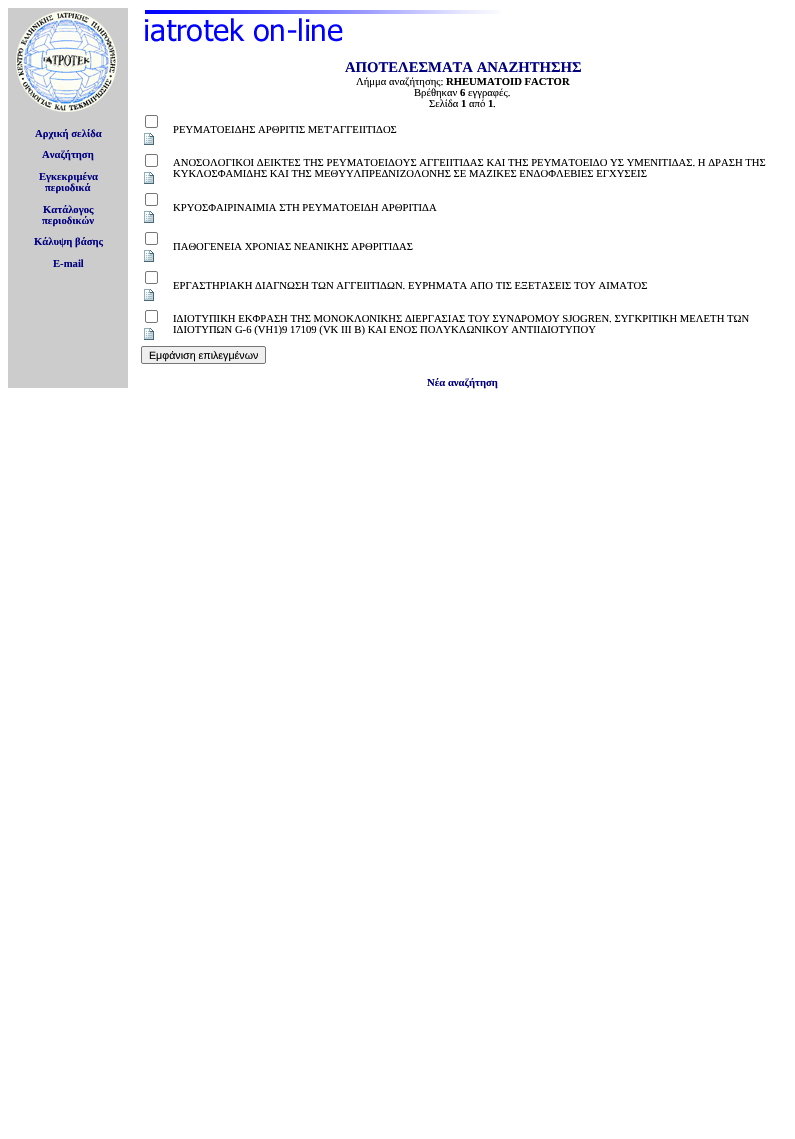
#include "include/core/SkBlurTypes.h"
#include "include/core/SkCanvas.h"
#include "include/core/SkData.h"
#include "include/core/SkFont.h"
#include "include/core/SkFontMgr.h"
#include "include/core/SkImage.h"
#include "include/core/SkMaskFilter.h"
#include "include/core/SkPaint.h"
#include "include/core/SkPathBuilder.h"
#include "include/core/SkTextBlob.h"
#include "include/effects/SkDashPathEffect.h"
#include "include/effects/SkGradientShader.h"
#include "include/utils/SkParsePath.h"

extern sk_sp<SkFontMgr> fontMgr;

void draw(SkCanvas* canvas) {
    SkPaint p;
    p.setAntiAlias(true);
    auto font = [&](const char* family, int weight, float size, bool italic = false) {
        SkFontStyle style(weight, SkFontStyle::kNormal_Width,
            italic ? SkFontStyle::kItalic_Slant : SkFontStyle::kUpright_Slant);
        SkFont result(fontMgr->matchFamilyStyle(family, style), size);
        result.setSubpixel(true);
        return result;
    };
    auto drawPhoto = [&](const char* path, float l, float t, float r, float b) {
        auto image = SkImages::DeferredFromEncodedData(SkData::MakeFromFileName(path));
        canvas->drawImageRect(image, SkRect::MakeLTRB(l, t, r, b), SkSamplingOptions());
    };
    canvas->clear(0xFFFFFFFF);
    p.setColor(0xFFCCCCCC);
    canvas->drawRect(SkRect::MakeLTRB(8, 8, 128, 388), p);
    drawPhoto("media/1.png", 145, 10, 501, 42);
    auto font1 = font("Liberation Serif", 700, 14.7f);
    p.setColor(0xFF000080);
    canvas->drawString("ΑΠΟΤΕΛΕΣΜΑΤΑ ΑΝΑΖΗΤΗΣΗΣ", 345, 72, font1, p);
    auto font2 = font("Liberation Serif", 400, 10.67f);
    p.setColor(0xFF000000);
    canvas->drawString("Λήμμα αναζήτησης:", 356, 85, font2, p);
    auto font3 = font("Liberation Serif", 700, 10.67f);
    canvas->drawString("RHEUMATOID FACTOR", 446, 85, font3, p);
    canvas->drawString("Βρέθηκαν", 414, 96, font2, p);
    canvas->drawString("6", 460, 96, font3, p);
    canvas->drawString("εγγραφές.", 468, 96, font2, p);
    canvas->drawString("Σελίδα", 429, 107, font2, p);
    canvas->drawString("1", 461, 107, font3, p);
    canvas->drawString("από", 469, 107, font2, p);
    canvas->drawString("1", 488, 107, font3, p);
    canvas->drawString(".", 493, 107, font2, p);
    p.setStyle(SkPaint::kStroke_Style);
    p.setStrokeWidth(1);
    p.setColor(0xFF767676);
    canvas->drawRoundRect(SkRect::MakeLTRB(145.5f, 115.5f, 157.5f, 127.5f), 1.5f, 1.5f, p);
    drawPhoto("media/2.png", 144, 133, 154, 145);
    p.setStyle(SkPaint::kFill_Style);
    p.setColor(0xFF000000);
    canvas->drawString("ΡΕΥΜΑΤΟΕΙΔΗΣ ΑΡΘΡΙΤΙΣ ΜΕΤ'ΑΓΓΕΙΙΤΙΔΟΣ", 173, 133, font2, p);
    p.setStyle(SkPaint::kStroke_Style);
    p.setColor(0xFF767676);
    canvas->drawRoundRect(SkRect::MakeLTRB(145.5f, 154.5f, 157.5f, 166.5f), 1.5f, 1.5f, p);
    drawPhoto("media/2.png", 144, 172, 154, 184);
    p.setStyle(SkPaint::kFill_Style);
    p.setColor(0xFF000000);
    canvas->drawString("ΑΝΟΣΟΛΟΓΙΚΟΙ ΔΕΙΚΤΕΣ ΤΗΣ ΡΕΥΜΑΤΟΕΙΔΟΥΣ ΑΓΓΕΙΙΤΙΔΑΣ ΚΑΙ ΤΗΣ ΡΕΥΜΑΤΟΕΙΔΟ ΥΣ ΥΜΕΝΙΤΙΔΑΣ. Η ΔΡΑΣΗ ΤΗΣ", 173, 166, font2, p);
    canvas->drawString("ΚΥΚΛΟΣΦΑΜΙΔΗΣ ΚΑΙ ΤΗΣ ΜΕΘΥΥΛΠΡΕΔΝΙΖΟΛΟΝΗΣ ΣΕ ΜΑΖΙΚΕΣ ΕΝΔΟΦΛΕΒΙΕΣ ΕΓΧΥΣΕΙΣ", 173, 177, font2, p);
    p.setStyle(SkPaint::kStroke_Style);
    p.setColor(0xFF767676);
    canvas->drawRoundRect(SkRect::MakeLTRB(145.5f, 193.5f, 157.5f, 205.5f), 1.5f, 1.5f, p);
    drawPhoto("media/2.png", 144, 211, 154, 223);
    p.setStyle(SkPaint::kFill_Style);
    p.setColor(0xFF000000);
    canvas->drawString("ΚΡΥΟΣΦΑΙΡΙΝΑΙΜΙΑ ΣΤΗ ΡΕΥΜΑΤΟΕΙΔΗ ΑΡΘΡΙΤΙΔΑ", 173, 211, font2, p);
    p.setStyle(SkPaint::kStroke_Style);
    p.setColor(0xFF767676);
    canvas->drawRoundRect(SkRect::MakeLTRB(145.5f, 232.5f, 157.5f, 244.5f), 1.5f, 1.5f, p);
    drawPhoto("media/2.png", 144, 250, 154, 262);
    p.setStyle(SkPaint::kFill_Style);
    p.setColor(0xFF000000);
    canvas->drawString("ΠΑΘΟΓΕΝΕΙΑ ΧΡΟΝΙΑΣ ΝΕΑΝΙΚΗΣ ΑΡΘΡΙΤΙΔΑΣ", 173, 250, font2, p);
    p.setStyle(SkPaint::kStroke_Style);
    p.setColor(0xFF767676);
    canvas->drawRoundRect(SkRect::MakeLTRB(145.5f, 271.5f, 157.5f, 283.5f), 1.5f, 1.5f, p);
    drawPhoto("media/2.png", 144, 289, 154, 301);
    p.setStyle(SkPaint::kFill_Style);
    p.setColor(0xFF000000);
    canvas->drawString("ΕΡΓΑΣΤΗΡΙΑΚΗ ΔΙΑΓΝΩΣΗ ΤΩΝ ΑΓΓΕΙΙΤΙΔΩΝ. ΕΥΡΗΜΑΤΑ ΑΠΟ ΤΙΣ ΕΞΕΤΑΣΕΙΣ ΤΟΥ ΑΙΜΑΤΟΣ", 173, 289, font2, p);
    p.setStyle(SkPaint::kStroke_Style);
    p.setColor(0xFF767676);
    canvas->drawRoundRect(SkRect::MakeLTRB(145.5f, 310.5f, 157.5f, 322.5f), 1.5f, 1.5f, p);
    drawPhoto("media/2.png", 144, 328, 154, 340);
    p.setStyle(SkPaint::kFill_Style);
    p.setColor(0xFF000000);
    canvas->drawString("ΙΔΙΟΤΥΠΙΚΗ ΕΚΦΡΑΣΗ ΤΗΣ ΜΟΝΟΚΛΟΝΙΚΗΣ ΔΙΕΡΓΑΣΙΑΣ ΤΟΥ ΣΥΝΔΡΟΜΟΥ SJOGREN. ΣΥΓΚΡΙΤΙΚΗ ΜΕΛΕΤΗ ΤΩΝ", 173, 322, font2, p);
    canvas->drawString("ΙΔΙΟΤΥΠΩΝ G-6 (VH1)9 17109 (VK III B) ΚΑΙ ΕΝΟΣ ΠΟΛΥΚΛΩΝΙΚΟΥ ΑΝΤΙΙΔΙΟΤΥΠΟΥ", 173, 333, font2, p);
    p.setColor(0xFFEFEFEF);
    canvas->drawRoundRect(SkRect::MakeLTRB(141.5f, 346.5f, 265.5f, 363.5f), 1.5f, 1.5f, p);
    p.setStyle(SkPaint::kStroke_Style);
    p.setColor(0xFF767676);
    canvas->drawRoundRect(SkRect::MakeLTRB(141.5f, 346.5f, 265.5f, 363.5f), 1.5f, 1.5f, p);
    auto font4 = font("Liberation Sans", 400, 10.67f);
    p.setStyle(SkPaint::kFill_Style);
    p.setColor(0xFF000000);
    canvas->drawString("Εμφάνιση επιλεγμένων", 149, 359, font4, p);
    p.setColor(0xFF000080);
    canvas->drawString("Νέα αναζήτηση", 427, 386, font3, p);
    drawPhoto("media/3.png", 16, 11, 117, 112);
    {
        const struct { const char* s; float x, y; } items[] = {
            {"Αρχική σελίδα", 35, 137},
            {"Αναζήτηση", 42, 158},
            {"Εγκεκριμένα", 39, 180},
            {"περιοδικά", 45, 191},
            {"Κατάλογος", 43, 213},
            {"περιοδικών", 42, 224},
            {"Κάλυψη βάσης", 34, 245},
            {"E-mail", 53, 267},
        };
        for (auto [s, x, y] : items) {
            canvas->drawString(s, x, y, font3, p);
        }
    }
}
